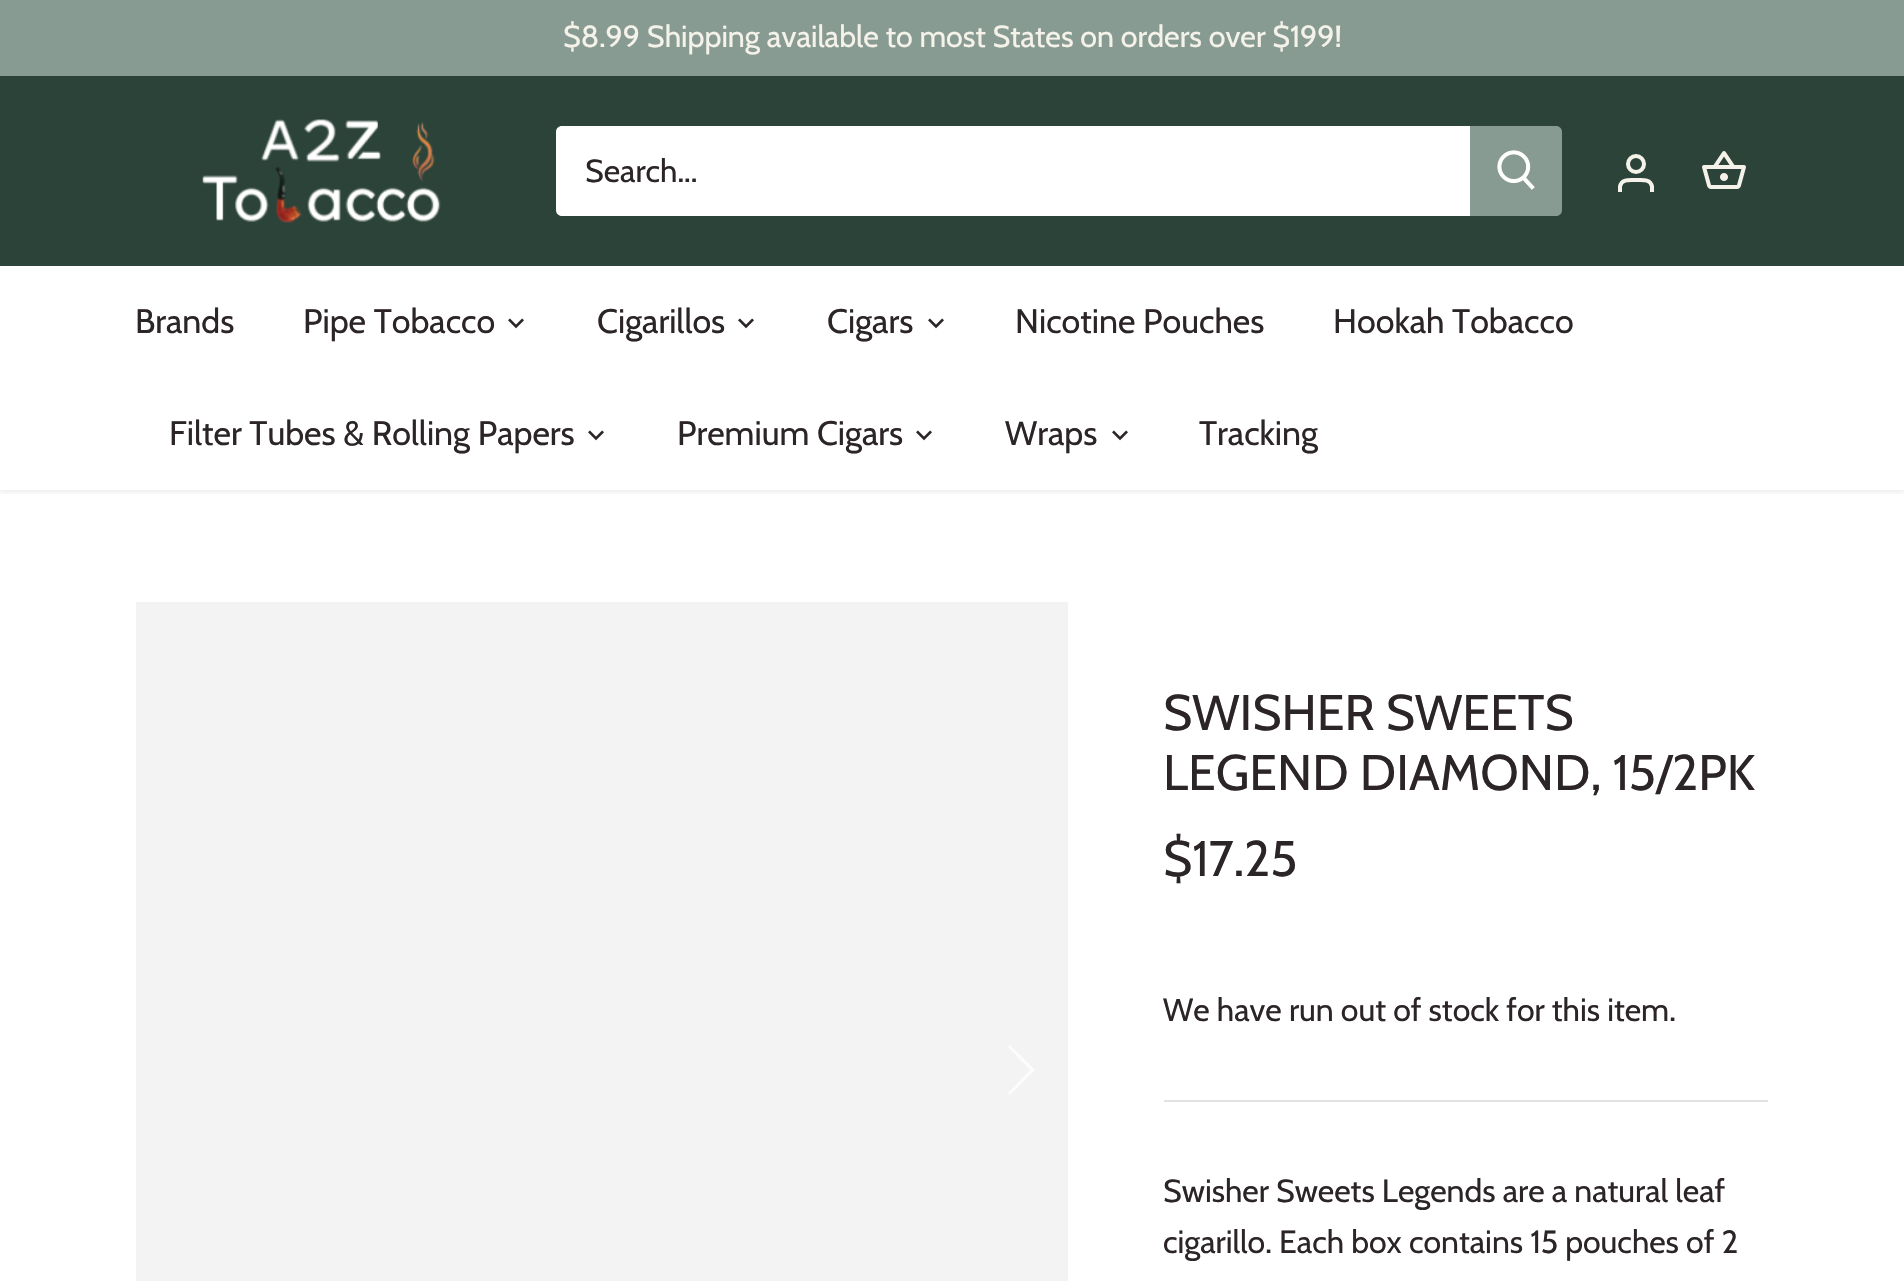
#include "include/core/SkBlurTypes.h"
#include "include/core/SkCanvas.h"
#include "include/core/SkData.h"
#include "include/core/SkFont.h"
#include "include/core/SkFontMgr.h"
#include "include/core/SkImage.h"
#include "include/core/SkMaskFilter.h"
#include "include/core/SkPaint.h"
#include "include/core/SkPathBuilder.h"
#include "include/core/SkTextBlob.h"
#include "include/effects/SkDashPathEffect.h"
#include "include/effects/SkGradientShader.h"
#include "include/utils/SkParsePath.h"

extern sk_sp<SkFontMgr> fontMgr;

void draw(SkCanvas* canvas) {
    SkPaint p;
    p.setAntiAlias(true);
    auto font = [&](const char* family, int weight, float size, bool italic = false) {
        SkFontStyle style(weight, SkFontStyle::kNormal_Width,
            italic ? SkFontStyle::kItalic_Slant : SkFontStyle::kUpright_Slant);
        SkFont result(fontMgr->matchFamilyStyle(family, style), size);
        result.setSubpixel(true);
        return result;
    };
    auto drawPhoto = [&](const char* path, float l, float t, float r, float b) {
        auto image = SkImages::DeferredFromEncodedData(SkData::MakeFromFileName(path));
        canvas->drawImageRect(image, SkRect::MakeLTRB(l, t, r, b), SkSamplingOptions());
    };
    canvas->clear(0xFFFFFFFF);
    canvas->save();
    canvas->clipRect(SkRect::MakeLTRB(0, 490, 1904, 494));
    p.setColor(0x14000000);
    p.setMaskFilter(SkMaskFilter::MakeBlur(kNormal_SkBlurStyle, 3));
    canvas->drawRect(SkRect::MakeLTRB(-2, 74, 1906, 492), p);
    p.setMaskFilter(nullptr);
    canvas->restore();
    p.setColor(0xFF889B92);
    canvas->drawRect(SkRect::MakeLTRB(0, 0, 1904, 76), p);
    auto font1 = font("Cabin", 400, 30.4f);
    p.setColor(0xFFF4F2E9);
    canvas->drawString("$8.99 Shipping available to most States on orders over $199!", 563, 47, font1, p);
    p.setColor(0xFF2C4339);
    canvas->drawRect(SkRect::MakeLTRB(0, 76, 1904, 266), p);
    drawPhoto("media/1.png", 202, 119, 441, 223);
    p.setColor(0xFFFFFFFF);
    canvas->drawPath(SkPathBuilder().moveTo(562, 126).lineTo(1472, 126).lineTo(1472, 216).lineTo(562, 216).cubicTo(558.5f, 216, 556, 213.5f, 556, 210).lineTo(556, 132).cubicTo(556, 128.5f, 558.5f, 126, 562, 126).close().detach(), p);
    auto font2 = font("Cabin", 400, 32);
    p.setColor(0xFF2C2528);
    canvas->drawString("Search...", 585, 182, font2, p);
    p.setColor(0xFF889B92);
    canvas->drawPath(SkPathBuilder().moveTo(1470, 126).lineTo(1556, 126).cubicTo(1559.5f, 126, 1562, 128.5f, 1562, 132).lineTo(1562, 210).cubicTo(1562, 213.5f, 1559.5f, 216, 1556, 216).lineTo(1470, 216).close().detach(), p);
    drawPhoto("media/2.png", 1497, 150, 1535, 190);
    p.setStyle(SkPaint::kStroke_Style);
    p.setStrokeWidth(4);
    p.setColor(0xFFF4F2E9);
    canvas->drawCircle(1636, 164, 8, p);
    canvas->drawPath(SkPathBuilder().moveTo(1652, 192).lineTo(1652, 186.5f).cubicTo(1650.5f, 178.5f, 1642, 180, 1636, 180).cubicTo(1630, 180, 1621.5f, 178.5f, 1620, 186.5f).lineTo(1620, 192).detach(), p);
    drawPhoto("media/3.png", 1702, 151, 1746, 189);
    auto font3 = font("Cabin", 400, 34);
    p.setStyle(SkPaint::kFill_Style);
    p.setColor(0xFF2C2528);
    canvas->drawString("Brands", 135, 333, font3, p);
    canvas->drawString("Pipe Tobacco", 303, 333, font3, p);
    drawPhoto("media/4.png", 508, 318, 524, 329);
    canvas->drawString("Cigarillos", 597, 333, font3, p);
    drawPhoto("media/4.png", 738, 318, 754, 329);
    canvas->drawString("Cigars", 827, 333, font3, p);
    drawPhoto("media/4.png", 928, 318, 944, 329);
    {
        const struct { const char* s; float x, y; } items[] = {
            {"Nicotine Pouches", 1015, 333},
            {"Hookah Tobacco", 1333, 333},
            {"Filter Tubes & Rolling Papers", 169, 445},
        };
        for (auto [s, x, y] : items) {
            canvas->drawString(s, x, y, font3, p);
        }
    }
    drawPhoto("media/4.png", 588, 430, 604, 441);
    canvas->drawString("Premium Cigars", 677, 445, font3, p);
    drawPhoto("media/4.png", 916, 430, 932, 441);
    canvas->drawString("Wraps", 1005, 445, font3, p);
    drawPhoto("media/4.png", 1112, 430, 1128, 441);
    canvas->drawString("Tracking", 1199, 445, font3, p);
    p.setColor(0xFFF3F3F3);
    canvas->drawRect(SkRect::MakeLTRB(136, 602, 1068, 1281), p);
    p.setColor(0xFFFCFCFC);
    canvas->drawPath(SkPathBuilder().moveTo(1010, 1045).lineTo(1008, 1047).lineTo(1030, 1070).lineTo(1008, 1093).lineTo(1010, 1095).lineTo(1035, 1070).close().detach(), p);
    auto font4 = font("Cabin", 400, 50);
    p.setColor(0xFF2C2528);
    {
        const struct { const char* s; float x, y; } items[] = {
            {"SWISHER SWEETS", 1163, 730},
            {"LEGEND DIAMOND, 15/2PK", 1163, 790},
            {"$17.25", 1163, 876},
        };
        for (auto [s, x, y] : items) {
            canvas->drawString(s, x, y, font4, p);
        }
    }
    canvas->drawString("We have run out of stock for this item.", 1163, 1021, font2, p);
    p.setColor(0xFFE2E2E2);
    canvas->drawRect(SkRect::MakeLTRB(1164, 1100, 1768, 1102), p);
    p.setColor(0xFF2C2528);
    canvas->drawString("Swisher Sweets Legends are a natural leaf", 1163, 1202, font2, p);
    canvas->drawString("cigarillo. Each box contains 15 pouches of 2", 1163, 1253, font2, p);
}
